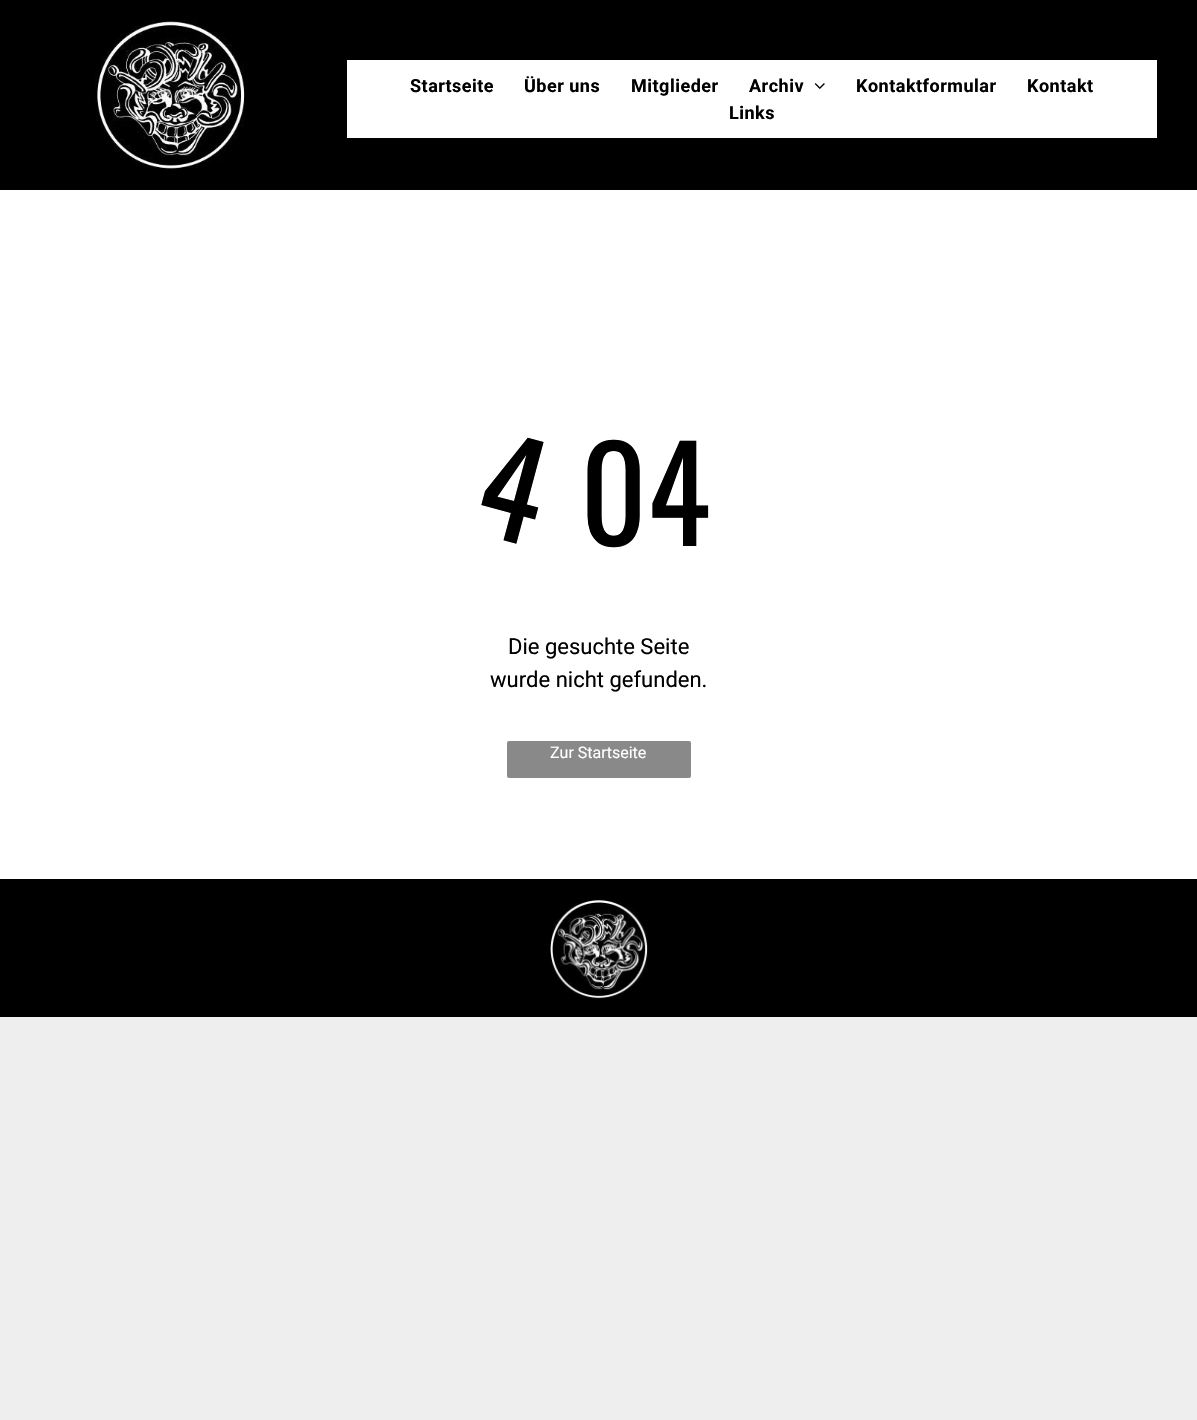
#include "include/core/SkBlurTypes.h"
#include "include/core/SkCanvas.h"
#include "include/core/SkData.h"
#include "include/core/SkFont.h"
#include "include/core/SkFontMgr.h"
#include "include/core/SkImage.h"
#include "include/core/SkMaskFilter.h"
#include "include/core/SkPaint.h"
#include "include/core/SkPathBuilder.h"
#include "include/core/SkTextBlob.h"
#include "include/effects/SkDashPathEffect.h"
#include "include/effects/SkGradientShader.h"
#include "include/utils/SkParsePath.h"

extern sk_sp<SkFontMgr> fontMgr;

void draw(SkCanvas* canvas) {
    SkPaint p;
    p.setAntiAlias(true);
    auto font = [&](const char* family, int weight, float size, bool italic = false) {
        SkFontStyle style(weight, SkFontStyle::kNormal_Width,
            italic ? SkFontStyle::kItalic_Slant : SkFontStyle::kUpright_Slant);
        SkFont result(fontMgr->matchFamilyStyle(family, style), size);
        result.setSubpixel(true);
        return result;
    };
    auto drawTracked = [&](const char* s, float x, float y, const SkFont& font, const SkPaint& ink, float letter, float word) {
        std::vector<SkGlyphID> glyphs(font.countText(s, strlen(s), SkTextEncoding::kUTF8));
        std::vector<float> xs(glyphs.size());
        font.textToGlyphs(s, strlen(s), SkTextEncoding::kUTF8, glyphs);
        font.getXPos(glyphs, xs, x);
        float extra = 0;
        for (size_t i = 0; i < glyphs.size(); i++) {
            xs[i] += extra;
            extra += letter + word * (glyphs[i] == font.unicharToGlyph(' '));
        }
        canvas->drawTextBlob(SkTextBlob::MakeFromPosHGlyphs(glyphs, xs, y, font), 0, 0, ink);
    };
    auto drawPhoto = [&](const char* path, float l, float t, float r, float b) {
        auto image = SkImages::DeferredFromEncodedData(SkData::MakeFromFileName(path));
        canvas->drawImageRect(image, SkRect::MakeLTRB(l, t, r, b), SkSamplingOptions());
    };
    canvas->clear(0xFFEEEEEE);
    p.setColor(0xFF000000);
    canvas->drawRect(SkRect::MakeLTRB(0, 0, 1197, 190), p);
    drawPhoto("media/1.png", 95, 20, 247, 169);
    p.setColor(0xFFFFFFFF);
    canvas->drawRect(SkRect::MakeLTRB(347, 60, 1157, 138), p);
    auto font1 = font("Roboto", 700, 18);
    p.setColor(0xFF000000);
    {
        const struct { const char* s; float x, y; } items[] = {
            {"Startseite", 410, 92},
            {"Über uns", 524, 92},
            {"Mitglieder", 631, 92},
            {"Archiv", 749, 92},
        };
        for (auto [s, x, y] : items) {
            drawTracked(s, x, y, font1, p, 0.5f, 0);
        }
    }
    drawPhoto("media/2.png", 814, 83, 825, 89);
    {
        const struct { const char* s; float x, y; } items[] = {
            {"Kontaktformular", 856, 92},
            {"Kontakt", 1027, 92},
            {"Links", 729, 119},
        };
        for (auto [s, x, y] : items) {
            drawTracked(s, x, y, font1, p, 0.5f, 0);
        }
    }
    p.setColor(0xFFFFFFFF);
    canvas->drawRect(SkRect::MakeLTRB(0, 190, 1197, 879), p);
    auto font2 = font("Oswald", 400, 130);
    p.setColor(0xFF000000);
    canvas->save();
    canvas->rotate(15, 469, 531);
    canvas->drawString("4", 469, 531, font2, p);
    canvas->restore();
    canvas->drawString("04", 580, 546, font2, p);
    auto font3 = font("Roboto", 400, 22);
    canvas->drawString("Die gesuchte Seite", 508, 654, font3, p);
    canvas->drawString("wurde nicht gefunden.", 490, 687, font3, p);
    p.setColor(0xFF898989);
    canvas->drawRoundRect(SkRect::MakeLTRB(507, 741, 691, 778), 2, 2, p);
    auto font4 = font("Roboto", 400, 16);
    p.setColor(0xFFFFFFFF);
    canvas->drawString("Zur Startseite", 550, 758, font4, p);
    p.setColor(0xFF000000);
    canvas->drawRect(SkRect::MakeLTRB(0, 879, 1197, 1017), p);
    drawPhoto("media/3.png", 550, 900, 648, 999);
}
